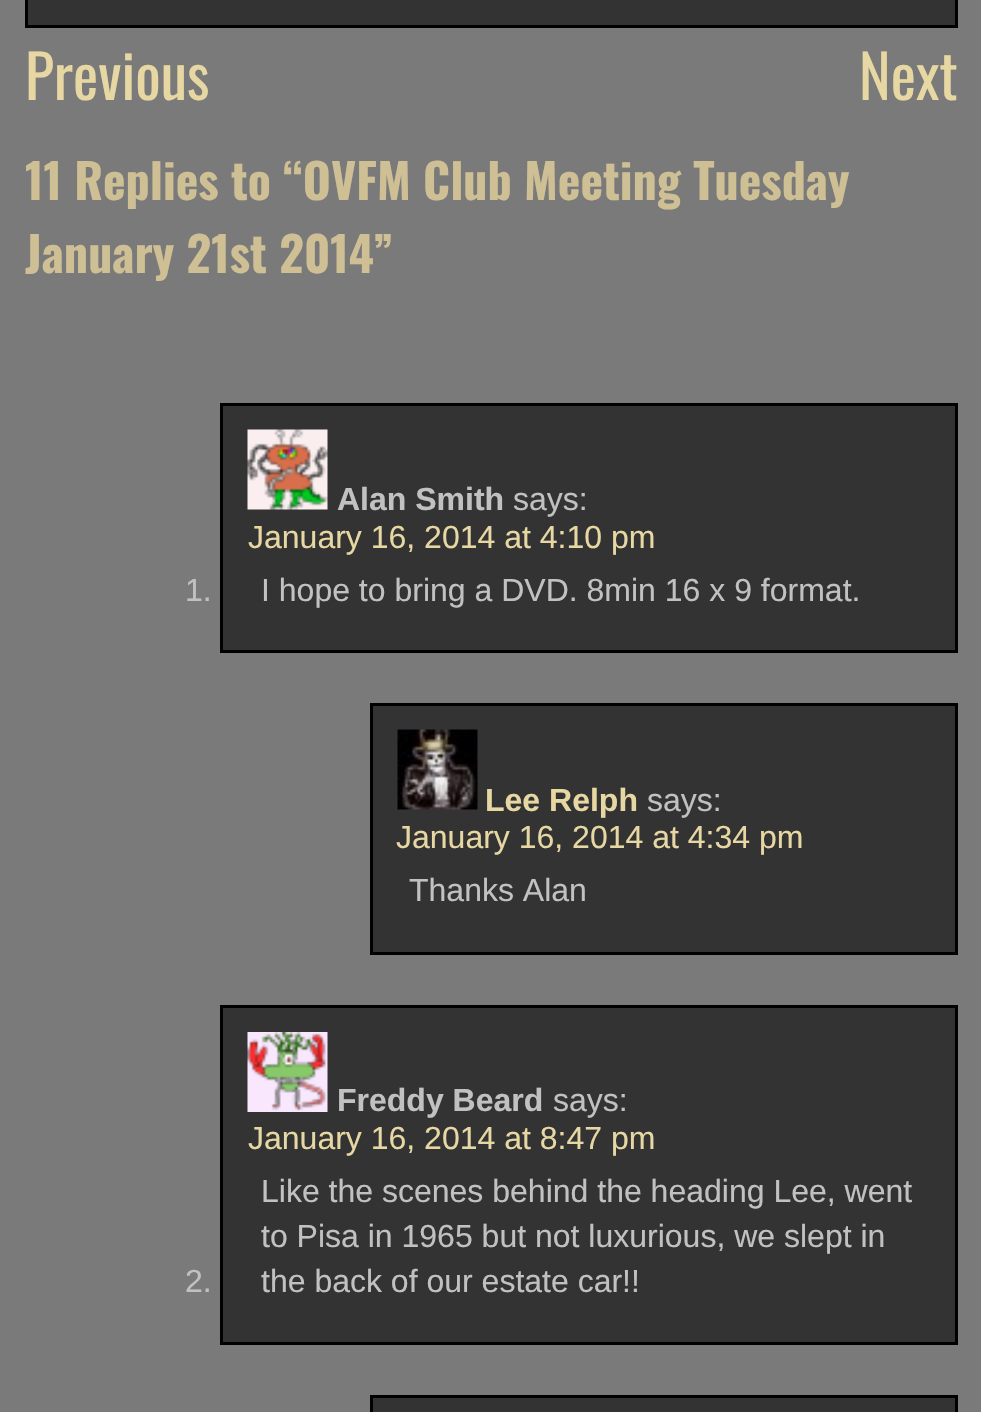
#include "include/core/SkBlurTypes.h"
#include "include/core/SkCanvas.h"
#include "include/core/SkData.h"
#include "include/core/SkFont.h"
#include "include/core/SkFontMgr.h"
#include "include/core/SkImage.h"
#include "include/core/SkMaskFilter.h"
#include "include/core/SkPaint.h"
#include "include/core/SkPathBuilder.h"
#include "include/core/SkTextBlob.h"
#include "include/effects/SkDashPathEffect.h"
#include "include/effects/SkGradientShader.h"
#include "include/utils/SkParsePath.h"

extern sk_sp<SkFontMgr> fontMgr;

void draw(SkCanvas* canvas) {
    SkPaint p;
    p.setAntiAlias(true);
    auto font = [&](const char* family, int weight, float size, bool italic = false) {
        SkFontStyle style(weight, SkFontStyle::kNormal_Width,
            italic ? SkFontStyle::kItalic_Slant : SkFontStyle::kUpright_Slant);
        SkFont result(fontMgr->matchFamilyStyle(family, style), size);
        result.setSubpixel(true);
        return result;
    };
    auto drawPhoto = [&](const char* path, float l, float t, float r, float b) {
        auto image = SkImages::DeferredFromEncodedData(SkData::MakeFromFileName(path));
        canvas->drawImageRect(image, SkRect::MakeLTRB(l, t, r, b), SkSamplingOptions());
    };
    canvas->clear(0xFF7A7A7A);
    p.setColor(0xFF333333);
    canvas->drawRect(SkRect::MakeLTRB(26.5f, -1.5f, 956.5f, 26.5f), p);
    p.setStyle(SkPaint::kStroke_Style);
    p.setStrokeWidth(3);
    p.setColor(0xFF000000);
    canvas->drawRect(SkRect::MakeLTRB(26.5f, -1.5f, 956.5f, 26.5f), p);
    auto font1 = font("Oswald", 400, 60);
    p.setStyle(SkPaint::kFill_Style);
    p.setColor(0xFFE7D8A3);
    canvas->drawString("Previous", 25, 100, font1, p);
    canvas->drawString("Next", 859, 100, font1, p);
    auto font2 = font("Oswald", 700, 48);
    p.setColor(0xFFCEBF94);
    canvas->drawString("11 Replies to “OVFM Club Meeting Tuesday", 25, 200, font2, p);
    canvas->drawString("January 21st 2014”", 25, 273, font2, p);
    auto font3 = font("Liberation Sans", 400, 32);
    p.setColor(0xFFC1C1C1);
    canvas->drawString("1.", 185, 601, font3, p);
    p.setColor(0xFF333333);
    canvas->drawRect(SkRect::MakeLTRB(221.5f, 404.5f, 956.5f, 651.5f), p);
    p.setStyle(SkPaint::kStroke_Style);
    p.setColor(0xFF000000);
    canvas->drawRect(SkRect::MakeLTRB(221.5f, 404.5f, 956.5f, 651.5f), p);
    drawPhoto("media/1.png", 247, 429, 328, 510);
    auto font4 = font("Liberation Sans", 700, 32);
    p.setStyle(SkPaint::kFill_Style);
    p.setColor(0xFFC1C1C1);
    canvas->drawString("Alan Smith", 337, 510, font4, p);
    canvas->drawString("says:", 513, 510, font3, p);
    p.setColor(0xFFE7D8A3);
    canvas->drawString("January 16, 2014 at 4:10 pm", 248, 548, font3, p);
    p.setColor(0xFFC1C1C1);
    canvas->drawString("I hope to bring a DVD. 8min 16 x 9 format.", 261, 601, font3, p);
    p.setColor(0xFF333333);
    canvas->drawRect(SkRect::MakeLTRB(371.5f, 704.5f, 956.5f, 953.5f), p);
    p.setStyle(SkPaint::kStroke_Style);
    p.setColor(0xFF000000);
    canvas->drawRect(SkRect::MakeLTRB(371.5f, 704.5f, 956.5f, 953.5f), p);
    drawPhoto("media/2.png", 397, 729, 478, 810);
    p.setStyle(SkPaint::kFill_Style);
    p.setColor(0xFFE7D8A3);
    canvas->drawString("Lee Relph", 485, 811, font4, p);
    p.setColor(0xFFC1C1C1);
    canvas->drawString("says:", 647, 811, font3, p);
    p.setColor(0xFFE7D8A3);
    canvas->drawString("January 16, 2014 at 4:34 pm", 396, 848, font3, p);
    p.setColor(0xFFC1C1C1);
    canvas->drawString("Thanks Alan", 409, 901, font3, p);
    canvas->drawString("2.", 185, 1292, font3, p);
    p.setColor(0xFF333333);
    canvas->drawRect(SkRect::MakeLTRB(221.5f, 1006.5f, 956.5f, 1343.5f), p);
    p.setStyle(SkPaint::kStroke_Style);
    p.setColor(0xFF000000);
    canvas->drawRect(SkRect::MakeLTRB(221.5f, 1006.5f, 956.5f, 1343.5f), p);
    drawPhoto("media/3.png", 247, 1032, 328, 1112);
    p.setStyle(SkPaint::kFill_Style);
    p.setColor(0xFFC1C1C1);
    canvas->drawString("Freddy Beard", 337, 1111, font4, p);
    canvas->drawString("says:", 553, 1111, font3, p);
    p.setColor(0xFFE7D8A3);
    canvas->drawString("January 16, 2014 at 8:47 pm", 248, 1149, font3, p);
    p.setColor(0xFFC1C1C1);
    {
        const struct { const char* s; float x, y; } items[] = {
            {"Like the scenes behind the heading Lee, went", 261, 1202},
            {"to Pisa in 1965 but not luxurious, we slept in", 261, 1247},
            {"the back of our estate car!!", 261, 1292},
        };
        for (auto [s, x, y] : items) {
            canvas->drawString(s, x, y, font3, p);
        }
    }
    p.setColor(0xFF333333);
    canvas->drawRect(SkRect::MakeLTRB(371.5f, 1396.5f, 956.5f, 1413.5f), p);
    p.setStyle(SkPaint::kStroke_Style);
    p.setColor(0xFF000000);
    canvas->drawRect(SkRect::MakeLTRB(371.5f, 1396.5f, 956.5f, 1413.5f), p);
}
